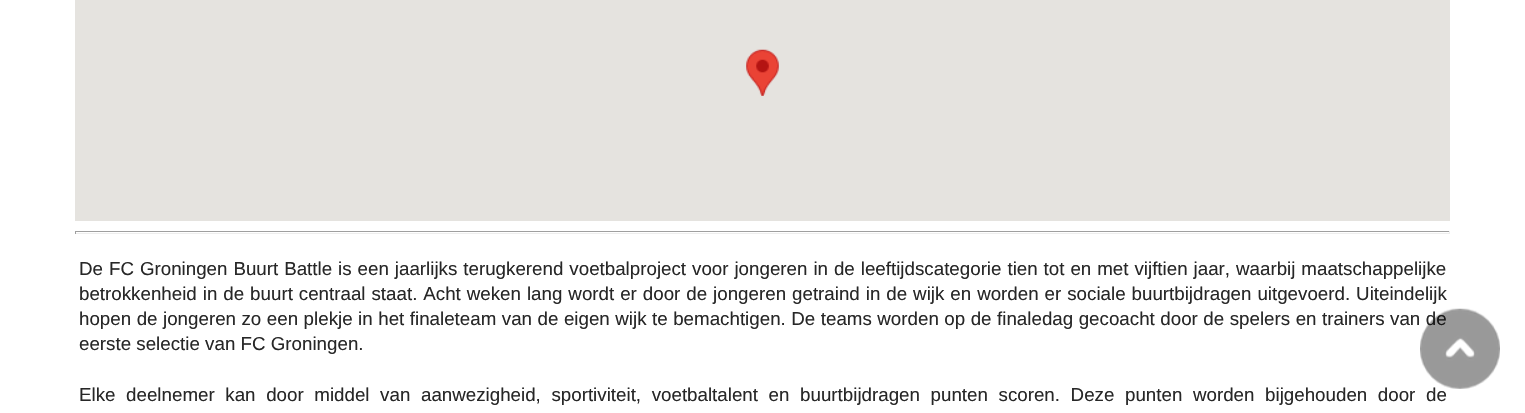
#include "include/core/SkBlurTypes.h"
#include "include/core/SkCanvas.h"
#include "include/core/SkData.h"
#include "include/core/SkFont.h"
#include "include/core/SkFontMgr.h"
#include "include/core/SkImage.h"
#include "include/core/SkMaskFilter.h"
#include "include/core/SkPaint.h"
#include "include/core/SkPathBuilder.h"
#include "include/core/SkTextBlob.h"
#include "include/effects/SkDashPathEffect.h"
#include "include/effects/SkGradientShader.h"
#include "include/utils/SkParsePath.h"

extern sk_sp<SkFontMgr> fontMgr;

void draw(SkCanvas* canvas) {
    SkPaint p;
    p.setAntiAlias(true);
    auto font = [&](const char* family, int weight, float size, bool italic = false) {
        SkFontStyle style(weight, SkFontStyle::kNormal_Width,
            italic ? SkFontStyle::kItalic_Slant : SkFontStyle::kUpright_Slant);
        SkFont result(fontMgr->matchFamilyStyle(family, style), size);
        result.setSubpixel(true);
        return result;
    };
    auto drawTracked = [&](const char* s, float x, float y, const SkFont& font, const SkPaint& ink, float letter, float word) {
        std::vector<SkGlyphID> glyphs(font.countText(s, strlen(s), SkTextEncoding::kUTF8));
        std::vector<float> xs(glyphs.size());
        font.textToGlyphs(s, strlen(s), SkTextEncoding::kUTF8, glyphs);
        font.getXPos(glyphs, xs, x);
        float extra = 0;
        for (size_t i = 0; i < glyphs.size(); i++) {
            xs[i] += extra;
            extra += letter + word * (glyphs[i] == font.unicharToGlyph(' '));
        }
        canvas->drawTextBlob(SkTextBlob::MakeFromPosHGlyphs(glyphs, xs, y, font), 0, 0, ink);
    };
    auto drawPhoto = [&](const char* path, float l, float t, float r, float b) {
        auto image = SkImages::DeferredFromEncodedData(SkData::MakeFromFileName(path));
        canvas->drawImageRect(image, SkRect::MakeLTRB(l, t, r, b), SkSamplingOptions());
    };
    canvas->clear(0xFFFFFFFF);
    p.setColor(0xFFE5E3DF);
    canvas->drawRect(SkRect::MakeLTRB(75, 0, 1450, 221), p);
    drawPhoto("media/1.png", 746, 49, 779, 96);
    {
        const struct { float l, t, r, b; SkColor color; } items[] = {
            {75, 231, 1450, 232, 0xFF9F9F9F},
            {1449, 231, 1450, 234, 0xFFEEEEEE},
            {75, 233, 1450, 234, 0xFFEEEEEE},
            {75, 231, 76, 234, 0xFF9F9F9F},
        };
        for (auto [l, t, r, b, color] : items) {
            p.setColor(color);
            canvas->drawRect(SkRect::MakeLTRB(l, t, r, b), p);
        }
    }
    auto font1 = font("Liberation Sans", 400, 18.75f);
    p.setColor(0xFF272727);
    drawTracked("De FC Groningen Buurt Battle is een jaarlijks terugkerend voetbalproject voor jongeren in de leeftijdscategorie tien tot en met vijftien jaar, waarbij maatschappelijke", 79, 275, font1, p, 0, 0.75f);
    drawTracked("betrokkenheid in de buurt centraal staat. Acht weken lang wordt er door de jongeren getraind in de wijk en worden er sociale buurtbijdragen uitgevoerd. Uiteindelijk", 79, 300, font1, p, 0, 0.75f);
    drawTracked("hopen de jongeren zo een plekje in het finaleteam van de eigen wijk te bemachtigen. De teams worden op de finaledag gecoacht door de spelers en trainers van de", 79, 325, font1, p, 0, 0.3f);
    canvas->drawString("eerste selectie van FC Groningen.", 79, 350, font1, p);
    drawTracked("Elke deelnemer kan door middel van aanwezigheid, sportiviteit, voetbaltalent en buurtbijdragen punten scoren. Deze punten worden bijgehouden door de", 79, 401, font1, p, 0, 5.4f);
    drawPhoto("media/2.png", 1420, 308, 1500, 389);
}
